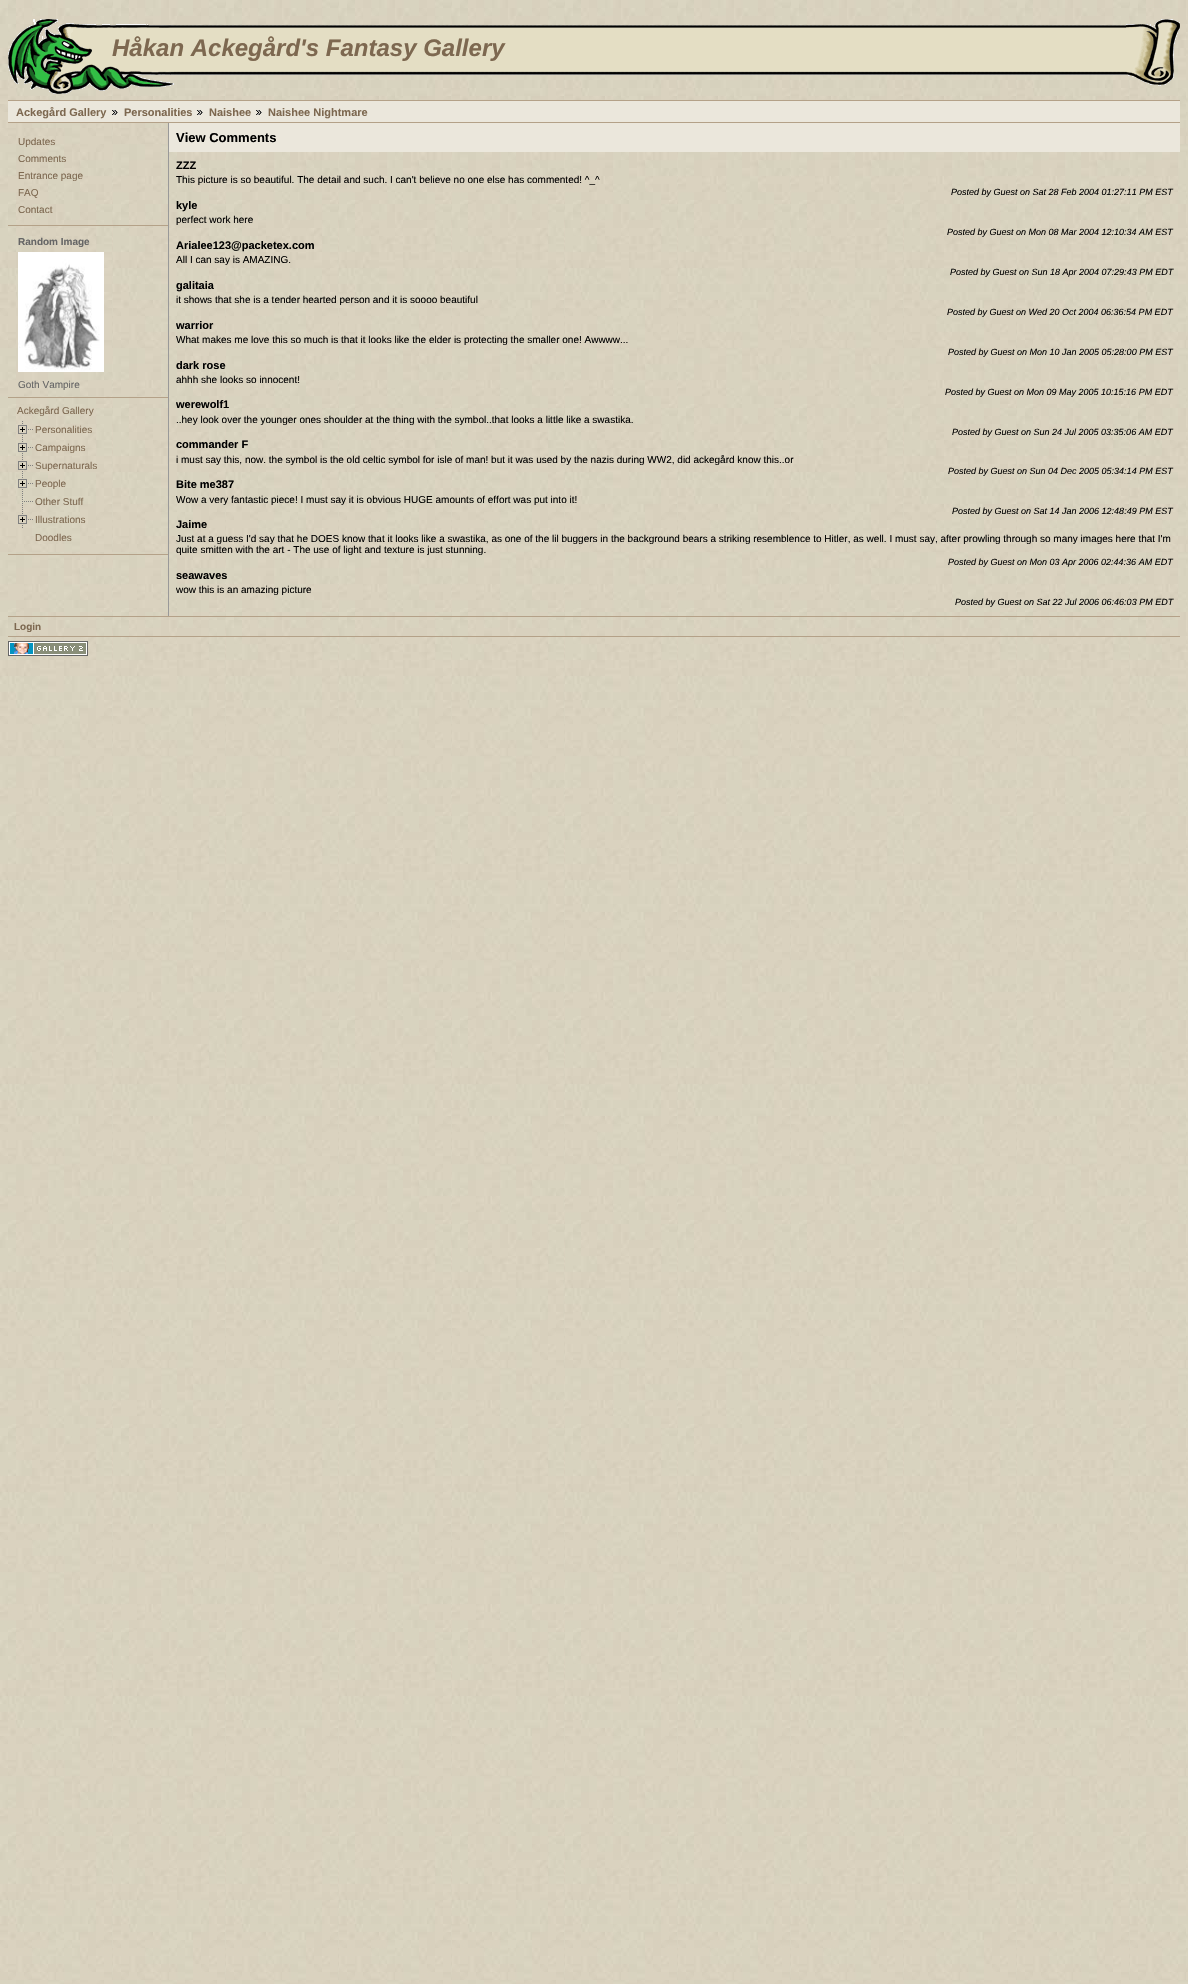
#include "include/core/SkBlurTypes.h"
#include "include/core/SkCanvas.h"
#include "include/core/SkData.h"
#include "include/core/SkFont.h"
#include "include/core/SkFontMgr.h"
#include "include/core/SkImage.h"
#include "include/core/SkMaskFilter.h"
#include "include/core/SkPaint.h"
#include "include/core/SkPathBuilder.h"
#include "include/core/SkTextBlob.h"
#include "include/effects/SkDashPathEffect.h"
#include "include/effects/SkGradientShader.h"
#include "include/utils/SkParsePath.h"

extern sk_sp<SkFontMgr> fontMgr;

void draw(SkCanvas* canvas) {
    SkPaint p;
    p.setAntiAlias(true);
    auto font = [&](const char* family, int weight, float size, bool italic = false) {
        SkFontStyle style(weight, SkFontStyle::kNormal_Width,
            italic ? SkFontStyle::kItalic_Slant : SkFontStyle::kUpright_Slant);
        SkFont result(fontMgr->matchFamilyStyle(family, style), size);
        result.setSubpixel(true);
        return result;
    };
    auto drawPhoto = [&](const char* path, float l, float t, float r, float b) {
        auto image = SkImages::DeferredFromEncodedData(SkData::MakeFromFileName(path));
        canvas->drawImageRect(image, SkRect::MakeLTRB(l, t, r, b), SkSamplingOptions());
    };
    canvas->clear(0xFFFFFFFF);
    drawPhoto("media/1.png", 0, 0, 1188, 1984);
    drawPhoto("media/2.png", 8, 19, 92, 94);
    drawPhoto("media/3.png", 92, 25, 1126, 34);
    drawPhoto("media/4.png", 92, 24, 172, 28);
    drawPhoto("media/5.png", 1126, 19, 1180, 86);
    p.setColor(0xFFE4DEC4);
    canvas->drawRect(SkRect::MakeLTRB(92, 34, 1126, 64), p);
    auto font1 = font("Liberation Sans", 700, 24, true);
    p.setColor(0xFF7D6850);
    canvas->drawString("Håkan Ackegård's Fantasy Gallery", 112, 56, font1, p);
    drawPhoto("media/6.png", 174, 64, 1126, 75);
    drawPhoto("media/7.png", 92, 64, 174, 91);
    {
        const struct { float l, t, r, b; SkColor color; } items[] = {
            {8, 101, 1180, 122, 0xFFEBE7DC},
            {8, 100, 1180, 101, 0xFFB4A188},
            {8, 122, 1180, 123, 0xFFB4A188},
        };
        for (auto [l, t, r, b, color] : items) {
            p.setColor(color);
            canvas->drawRect(SkRect::MakeLTRB(l, t, r, b), p);
        }
    }
    auto font2 = font("Liberation Sans", 700, 11);
    p.setColor(0xFF7D6850);
    canvas->drawString("Ackegård Gallery", 16, 116, font2, p);
    drawPhoto("media/8.png", 112, 110, 118, 115);
    canvas->drawString("Personalities", 124, 116, font2, p);
    drawPhoto("media/8.png", 197, 110, 203, 115);
    canvas->drawString("Naishee", 209, 116, font2, p);
    drawPhoto("media/8.png", 256, 110, 262, 115);
    canvas->drawString("Naishee Nightmare", 268, 116, font2, p);
    p.setColor(0xFF999999);
    canvas->drawRect(SkRect::MakeLTRB(168, 123, 169, 616), p);
    p.setColor(0xFFB4A188);
    canvas->drawRect(SkRect::MakeLTRB(8, 225, 168, 226), p);
    auto font3 = font("Liberation Sans", 400, 10);
    p.setColor(0xFF7D6850);
    {
        const struct { const char* s; float x, y; } items[] = {
            {"Updates", 18, 145},
            {"Comments", 18, 162},
            {"Entrance page", 18, 179},
            {"FAQ", 18, 196},
            {"Contact", 18, 213},
        };
        for (auto [s, x, y] : items) {
            canvas->drawString(s, x, y, font3, p);
        }
    }
    p.setColor(0xFFB4A188);
    canvas->drawRect(SkRect::MakeLTRB(8, 397, 168, 398), p);
    auto font4 = font("Liberation Sans", 700, 10);
    p.setColor(0xFF666666);
    canvas->drawString("Random Image", 18, 245, font4, p);
    drawPhoto("media/9.png", 18, 252, 104, 372);
    canvas->drawString("Goth Vampire", 18, 388, font3, p);
    p.setColor(0xFFB4A188);
    canvas->drawRect(SkRect::MakeLTRB(8, 554, 168, 555), p);
    p.setColor(0xFF7D6850);
    canvas->drawString("Ackegård Gallery", 17, 414, font3, p);
    drawPhoto("media/10.png", 18, 421, 33, 438);
    canvas->drawString("Personalities", 35, 433, font3, p);
    drawPhoto("media/11.png", 18, 439, 33, 456);
    canvas->drawString("Campaigns", 35, 451, font3, p);
    drawPhoto("media/12.png", 18, 457, 33, 474);
    canvas->drawString("Supernaturals", 35, 469, font3, p);
    drawPhoto("media/13.png", 18, 475, 33, 492);
    canvas->drawString("People", 35, 487, font3, p);
    drawPhoto("media/14.png", 22, 493, 33, 510);
    canvas->drawString("Other Stuff", 35, 505, font3, p);
    drawPhoto("media/15.png", 18, 511, 33, 528);
    canvas->drawString("Illustrations", 35, 523, font3, p);
    canvas->drawString("Doodles", 35, 541, font3, p);
    p.setColor(0xFFEBE7DC);
    canvas->drawRect(SkRect::MakeLTRB(169, 123, 1180, 152), p);
    auto font5 = font("Liberation Sans", 700, 13);
    p.setColor(0xFF000000);
    canvas->drawString("View Comments", 176, 142, font5, p);
    canvas->drawString("ZZZ", 176, 169, font2, p);
    canvas->drawString("This picture is so beautiful. The detail and such. I can't believe no one else has commented! ^_^", 176, 183, font3, p);
    auto font6 = font("Liberation Sans", 400, 9, true);
    canvas->drawString("Posted by Guest on Sat 28 Feb 2004 01:27:11 PM EST", 951, 195, font6, p);
    canvas->drawString("kyle", 176, 209, font2, p);
    canvas->drawString("perfect work here", 176, 223, font3, p);
    canvas->drawString("Posted by Guest on Mon 08 Mar 2004 12:10:34 AM EST", 947, 235, font6, p);
    canvas->drawString("Arialee123@packetex.com", 176, 249, font2, p);
    canvas->drawString("All I can say is AMAZING.", 176, 263, font3, p);
    canvas->drawString("Posted by Guest on Sun 18 Apr 2004 07:29:43 PM EDT", 950, 275, font6, p);
    canvas->drawString("galitaia", 176, 289, font2, p);
    canvas->drawString("it shows that she is a tender hearted person and it is soooo beautiful", 176, 303, font3, p);
    canvas->drawString("Posted by Guest on Wed 20 Oct 2004 06:36:54 PM EDT", 947, 315, font6, p);
    canvas->drawString("warrior", 176, 329, font2, p);
    canvas->drawString("What makes me love this so much is that it looks like the elder is protecting the smaller one! Awwww...", 176, 343, font3, p);
    canvas->drawString("Posted by Guest on Mon 10 Jan 2005 05:28:00 PM EST", 948, 355, font6, p);
    canvas->drawString("dark rose", 176, 369, font2, p);
    canvas->drawString("ahhh she looks so innocent!", 176, 383, font3, p);
    canvas->drawString("Posted by Guest on Mon 09 May 2005 10:15:16 PM EDT", 945, 395, font6, p);
    canvas->drawString("werewolf1", 176, 408, font2, p);
    canvas->drawString("..hey look over the younger ones shoulder at the thing with the symbol..that looks a little like a swastika.", 176, 423, font3, p);
    canvas->drawString("Posted by Guest on Sun 24 Jul 2005 03:35:06 AM EDT", 952, 435, font6, p);
    canvas->drawString("commander F", 176, 448, font2, p);
    canvas->drawString("i must say this, now. the symbol is the old celtic symbol for isle of man! but it was used by the nazis during WW2, did ackegård know this..or", 176, 463, font3, p);
    canvas->drawString("Posted by Guest on Sun 04 Dec 2005 05:34:14 PM EST", 948, 474, font6, p);
    canvas->drawString("Bite me387", 176, 488, font2, p);
    canvas->drawString("Wow a very fantastic piece! I must say it is obvious HUGE amounts of effort was put into it!", 176, 503, font3, p);
    canvas->drawString("Posted by Guest on Sat 14 Jan 2006 12:48:49 PM EST", 952, 514, font6, p);
    canvas->drawString("Jaime", 176, 528, font2, p);
    canvas->drawString("Just at a guess I'd say that he DOES know that it looks like a swastika, as one of the lil buggers in the background bears a striking resemblence to Hitler, as well. I must say, after prowling through so many images here that I'm", 176, 542, font3, p);
    canvas->drawString("quite smitten with the art - The use of light and texture is just stunning.", 176, 553, font3, p);
    canvas->drawString("Posted by Guest on Mon 03 Apr 2006 02:44:36 AM EDT", 948, 565, font6, p);
    canvas->drawString("seawaves", 176, 579, font2, p);
    canvas->drawString("wow this is an amazing picture", 176, 593, font3, p);
    canvas->drawString("Posted by Guest on Sat 22 Jul 2006 06:46:03 PM EDT", 955, 605, font6, p);
    p.setColor(0xFFB4A188);
    canvas->drawRect(SkRect::MakeLTRB(8, 616, 1180, 617), p);
    canvas->drawRect(SkRect::MakeLTRB(8, 636, 1180, 637), p);
    p.setColor(0xFF7D6850);
    canvas->drawString("Login", 14, 630, font4, p);
    drawPhoto("media/16.png", 8, 641, 88, 656);
}
